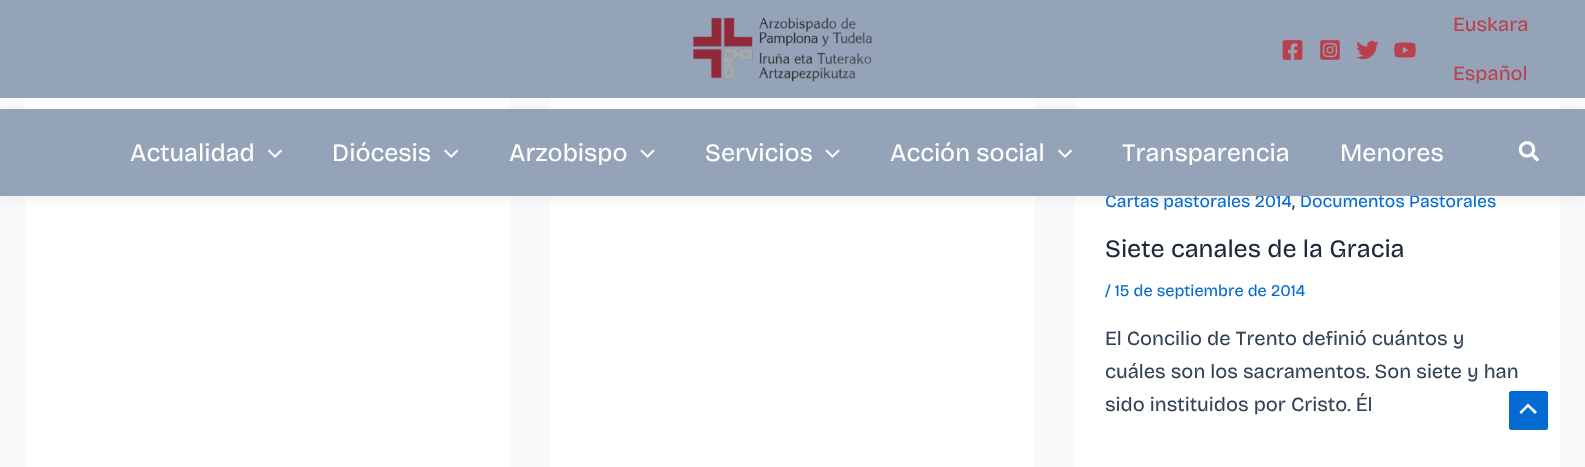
#include "include/core/SkBlurTypes.h"
#include "include/core/SkCanvas.h"
#include "include/core/SkData.h"
#include "include/core/SkFont.h"
#include "include/core/SkFontMgr.h"
#include "include/core/SkImage.h"
#include "include/core/SkMaskFilter.h"
#include "include/core/SkPaint.h"
#include "include/core/SkPathBuilder.h"
#include "include/core/SkTextBlob.h"
#include "include/effects/SkDashPathEffect.h"
#include "include/effects/SkGradientShader.h"
#include "include/utils/SkParsePath.h"

extern sk_sp<SkFontMgr> fontMgr;

void draw(SkCanvas* canvas) {
    SkPaint p;
    p.setAntiAlias(true);
    auto font = [&](const char* family, int weight, float size, bool italic = false) {
        SkFontStyle style(weight, SkFontStyle::kNormal_Width,
            italic ? SkFontStyle::kItalic_Slant : SkFontStyle::kUpright_Slant);
        SkFont result(fontMgr->matchFamilyStyle(family, style), size);
        result.setSubpixel(true);
        return result;
    };
    auto drawPhoto = [&](const char* path, float l, float t, float r, float b) {
        auto image = SkImages::DeferredFromEncodedData(SkData::MakeFromFileName(path));
        canvas->drawImageRect(image, SkRect::MakeLTRB(l, t, r, b), SkSamplingOptions());
    };
    canvas->clear(0xFFF9FAFB);
    p.setColor(0xFFFFFFFF);
    canvas->drawRoundRect(SkRect::MakeLTRB(25, -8, 510, 115), 8, 8, p);
    canvas->drawRoundRect(SkRect::MakeLTRB(550, -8, 1035, 115), 8, 8, p);
    canvas->drawRoundRect(SkRect::MakeLTRB(1075, -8, 1560, 115), 8, 8, p);
    {
        const struct { float l, t, r, b; SkColor color; } items[] = {
            {25, 196, 510, 467, 0xFFFFFFFF},
            {550, 196, 1035, 467, 0xFFFFFFFF},
            {1075, 196, 1560, 467, 0xFFFFFFFF},
        };
        for (auto [l, t, r, b, color] : items) {
            p.setColor(color);
            canvas->drawRect(SkRect::MakeLTRB(l, t, r, b), p);
        }
    }
    p.setColor(0x12243242);
    p.setMaskFilter(SkMaskFilter::MakeBlur(kNormal_SkBlurStyle, 6));
    canvas->drawRect(SkRect::MakeLTRB(0, 111, 1585, 199), p);
    p.setMaskFilter(nullptr);
    p.setColor(0xFF94A3B8);
    canvas->drawRect(SkRect::MakeLTRB(0, 0, 1585, 98), p);
    drawPhoto("media/1.png", 693, 17, 873, 82);
    drawPhoto("media/2.png", 1282, 40, 1303, 60);
    drawPhoto("media/3.png", 1320, 40, 1340, 60);
    drawPhoto("media/4.png", 1356, 40, 1379, 60);
    drawPhoto("media/5.png", 1394, 42, 1416, 58);
    auto font1 = font("Bricolage Grotesque", 800, 20);
    p.setColor(0xFFB9414E);
    canvas->drawString("Euskara", 1453, 31, font1, p);
    canvas->drawString("Español", 1453, 80, font1, p);
    auto font2 = font("Bricolage Grotesque", 800, 17.5f);
    p.setColor(0xFF046BD2);
    canvas->drawString("Cartas pastorales 2014", 1105, 207, font2, p);
    canvas->drawString("Documentos Pastorales", 1300, 207, font2, p);
    p.setColor(0xFF94A3B8);
    canvas->drawRect(SkRect::MakeLTRB(0, 109, 1585, 196), p);
    auto font3 = font("Bricolage Grotesque", 800, 25);
    p.setColor(0xFFFFFFFF);
    canvas->drawString("Actualidad", 130, 161, font3, p);
    drawPhoto("media/6.png", 268, 149, 283, 158);
    canvas->drawString("Diócesis", 332, 161, font3, p);
    drawPhoto("media/7.png", 444, 149, 459, 158);
    canvas->drawString("Arzobispo", 509, 161, font3, p);
    drawPhoto("media/8.png", 640, 149, 655, 158);
    canvas->drawString("Servicios", 705, 161, font3, p);
    drawPhoto("media/8.png", 825, 149, 840, 158);
    canvas->drawString("Acción social", 890, 161, font3, p);
    drawPhoto("media/6.png", 1058, 149, 1073, 158);
    canvas->drawString("Transparencia", 1122, 161, font3, p);
    canvas->drawString("Menores", 1340, 161, font3, p);
    drawPhoto("media/9.png", 1519, 141, 1539, 162);
    p.setColor(0xFF334155);
    canvas->drawString(",", 1292, 207, font1, p);
    p.setColor(0xFF1E293B);
    canvas->drawString("Siete canales de la Gracia", 1105, 257, font3, p);
    auto font4 = font("Bricolage Grotesque", 800, 16.25f);
    p.setColor(0xFF046BD2);
    canvas->drawString("/ 15 de septiembre de 2014", 1105, 296, font4, p);
    p.setColor(0xFF334155);
    {
        const struct { const char* s; float x, y; } items[] = {
            {"El Concilio de Trento definió cuántos y", 1105, 345},
            {"cuáles son los sacramentos. Son siete y han", 1105, 378},
            {"sido instituidos por Cristo. Él", 1105, 411},
        };
        for (auto [s, x, y] : items) {
            canvas->drawString(s, x, y, font1, p);
        }
    }
    p.setColor(0xFF046BD2);
    canvas->drawRoundRect(SkRect::MakeLTRB(1509, 391, 1548, 430), 2.5f, 2.5f, p);
    p.setColor(0xFFFFFFFF);
    canvas->drawPath(SkPathBuilder().moveTo(1537, 412).lineTo(1528, 403.5f).lineTo(1519.5f, 412).lineTo(1521, 414).lineTo(1528, 407).lineTo(1535, 414).close().detach(), p);
}
